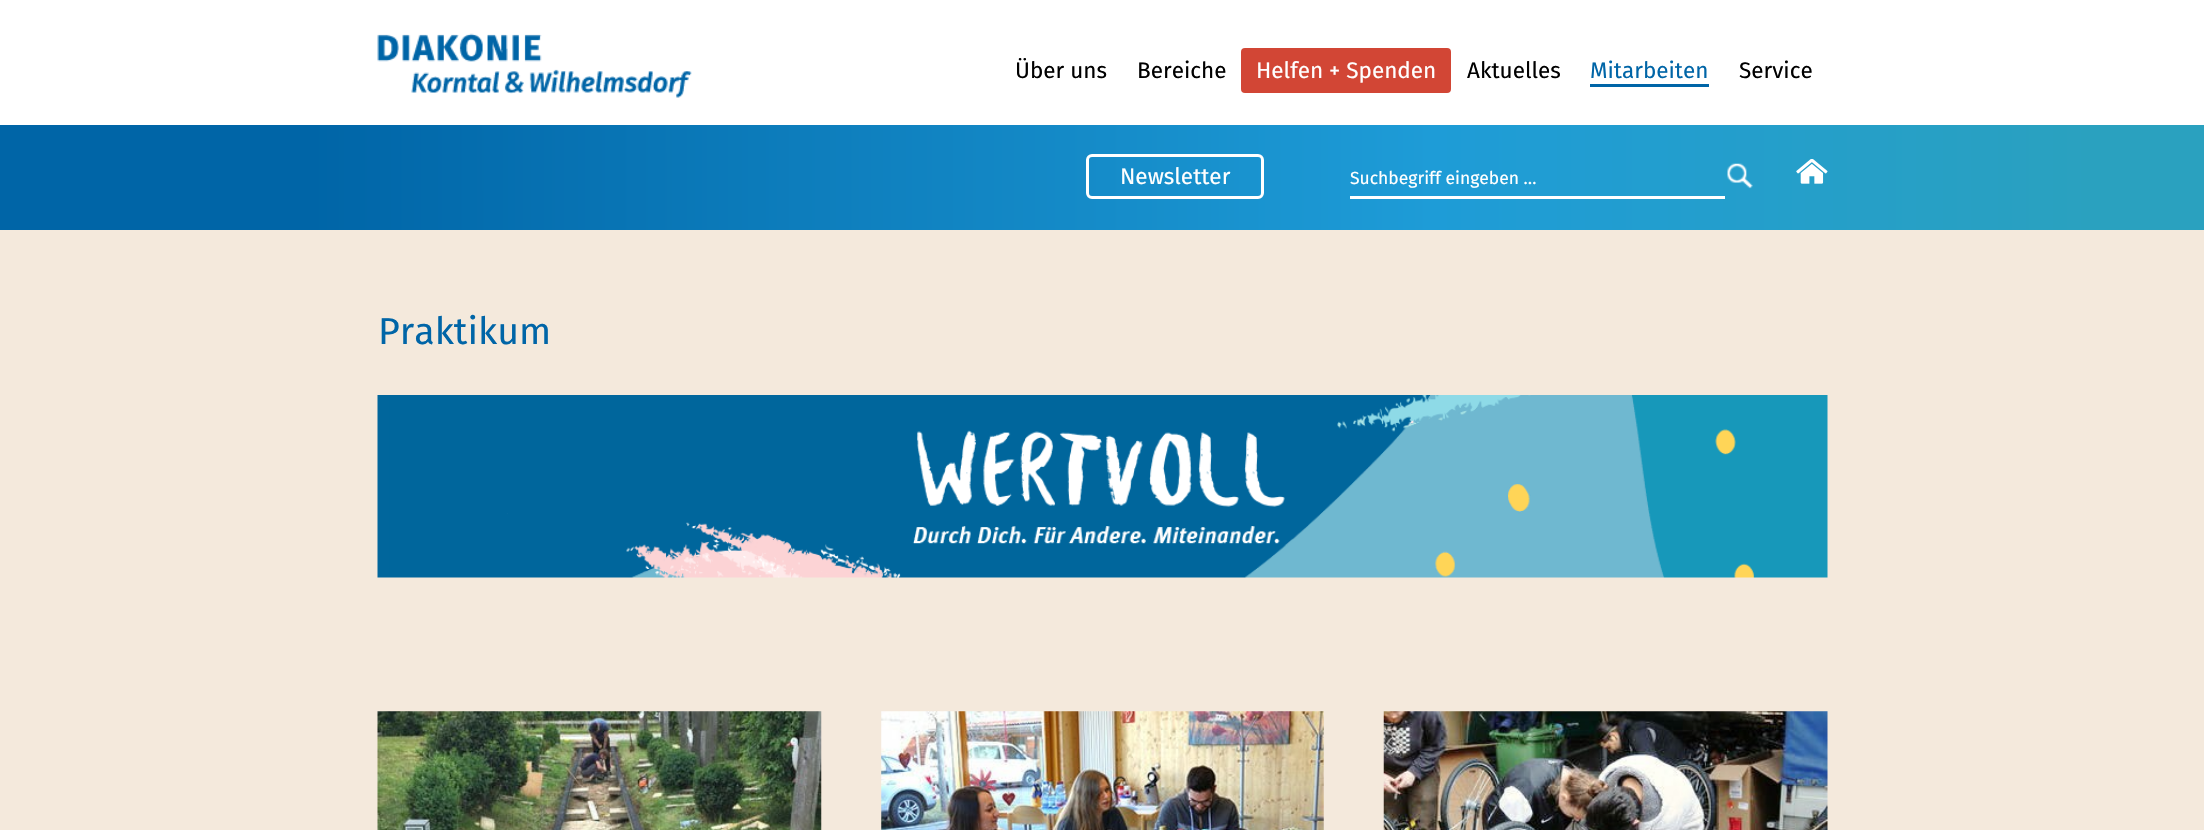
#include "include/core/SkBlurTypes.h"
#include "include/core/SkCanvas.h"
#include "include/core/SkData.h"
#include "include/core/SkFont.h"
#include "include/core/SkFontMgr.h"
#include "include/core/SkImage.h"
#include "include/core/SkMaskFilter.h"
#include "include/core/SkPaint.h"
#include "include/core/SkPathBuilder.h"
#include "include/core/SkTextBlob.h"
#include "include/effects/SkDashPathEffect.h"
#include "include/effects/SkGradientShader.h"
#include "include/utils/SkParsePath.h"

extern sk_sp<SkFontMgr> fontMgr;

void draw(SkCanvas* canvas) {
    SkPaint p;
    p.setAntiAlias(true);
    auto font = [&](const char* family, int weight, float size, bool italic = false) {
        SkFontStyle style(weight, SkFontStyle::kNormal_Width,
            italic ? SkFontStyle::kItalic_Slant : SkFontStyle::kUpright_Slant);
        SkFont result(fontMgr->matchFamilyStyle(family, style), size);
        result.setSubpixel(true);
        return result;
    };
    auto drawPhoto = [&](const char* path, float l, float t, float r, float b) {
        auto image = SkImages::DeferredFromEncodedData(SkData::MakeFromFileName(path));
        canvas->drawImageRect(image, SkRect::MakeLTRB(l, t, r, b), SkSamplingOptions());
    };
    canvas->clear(0xFFFFFFFF);
    drawPhoto("media/1.png", 377, 33, 692, 98);
    auto font1 = font("Fira Sans", 400, 22.5f);
    p.setColor(0xFF000000);
    canvas->drawString("Über uns", 1015, 78, font1, p);
    canvas->drawString("Bereiche", 1137, 78, font1, p);
    p.setColor(0xFFD24635);
    canvas->drawRoundRect(SkRect::MakeLTRB(1241, 48, 1451, 93), 4, 4, p);
    p.setColor(0xFFFFFFFF);
    canvas->drawString("Helfen + Spenden", 1256, 78, font1, p);
    p.setColor(0xFF000000);
    canvas->drawString("Aktuelles", 1467, 78, font1, p);
    p.setColor(0xFF0065A7);
    canvas->drawString("Mitarbeiten", 1590, 78, font1, p);
    canvas->drawRect(SkRect::MakeLTRB(1590, 84, 1709, 87), p);
    p.setColor(0xFF000000);
    canvas->drawString("Service", 1739, 78, font1, p);
    {
        const SkColor colors[] = {0xFF0065A7, 0xFF0065A7, 0xFF1E9CD7, 0xFF2AA1BF};
        const float stops[] = {0, 0.14f, 0.65f, 0.95f};
        const SkPoint ends[] = {{0, 178}, {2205, 177}};
        p.setShader(SkGradientShader::MakeLinear(ends, colors, stops, 4, SkTileMode::kClamp));
        p.setAlpha(255);
    }
    canvas->drawRect(SkRect::MakeLTRB(0, 125, 2204, 230), p);
    p.setStyle(SkPaint::kStroke_Style);
    p.setStrokeWidth(3);
    p.setShader(nullptr);
    p.setColor(0xFFFFFFFF);
    canvas->drawRoundRect(SkRect::MakeLTRB(1087.5f, 155.5f, 1262.5f, 197.5f), 4.5f, 4.5f, p);
    p.setStyle(SkPaint::kFill_Style);
    canvas->drawString("Newsletter", 1120, 184, font1, p);
    canvas->drawRect(SkRect::MakeLTRB(1350, 196, 1725, 199), p);
    auto font2 = font("Fira Sans", 400, 17.5f);
    canvas->drawString("Suchbegriff eingeben …", 1350, 184, font2, p);
    drawPhoto("media/2.png", 1727, 163, 1753, 189);
    drawPhoto("media/3.png", 1796, 159, 1828, 184);
    p.setColor(0xFFF4E9DC);
    canvas->drawRect(SkRect::MakeLTRB(0, 230, 2204, 830), p);
    auto font3 = font("Fira Sans", 400, 37.5f);
    p.setColor(0xFF0065A7);
    canvas->drawString("Praktikum", 378, 344, font3, p);
    drawPhoto("media/4.png", 377, 395, 1828, 578);
    drawPhoto("media/5.png", 377, 711, 822, 830);
    drawPhoto("media/6.png", 881, 711, 1324, 830);
    drawPhoto("media/7.png", 1383, 711, 1828, 830);
}
